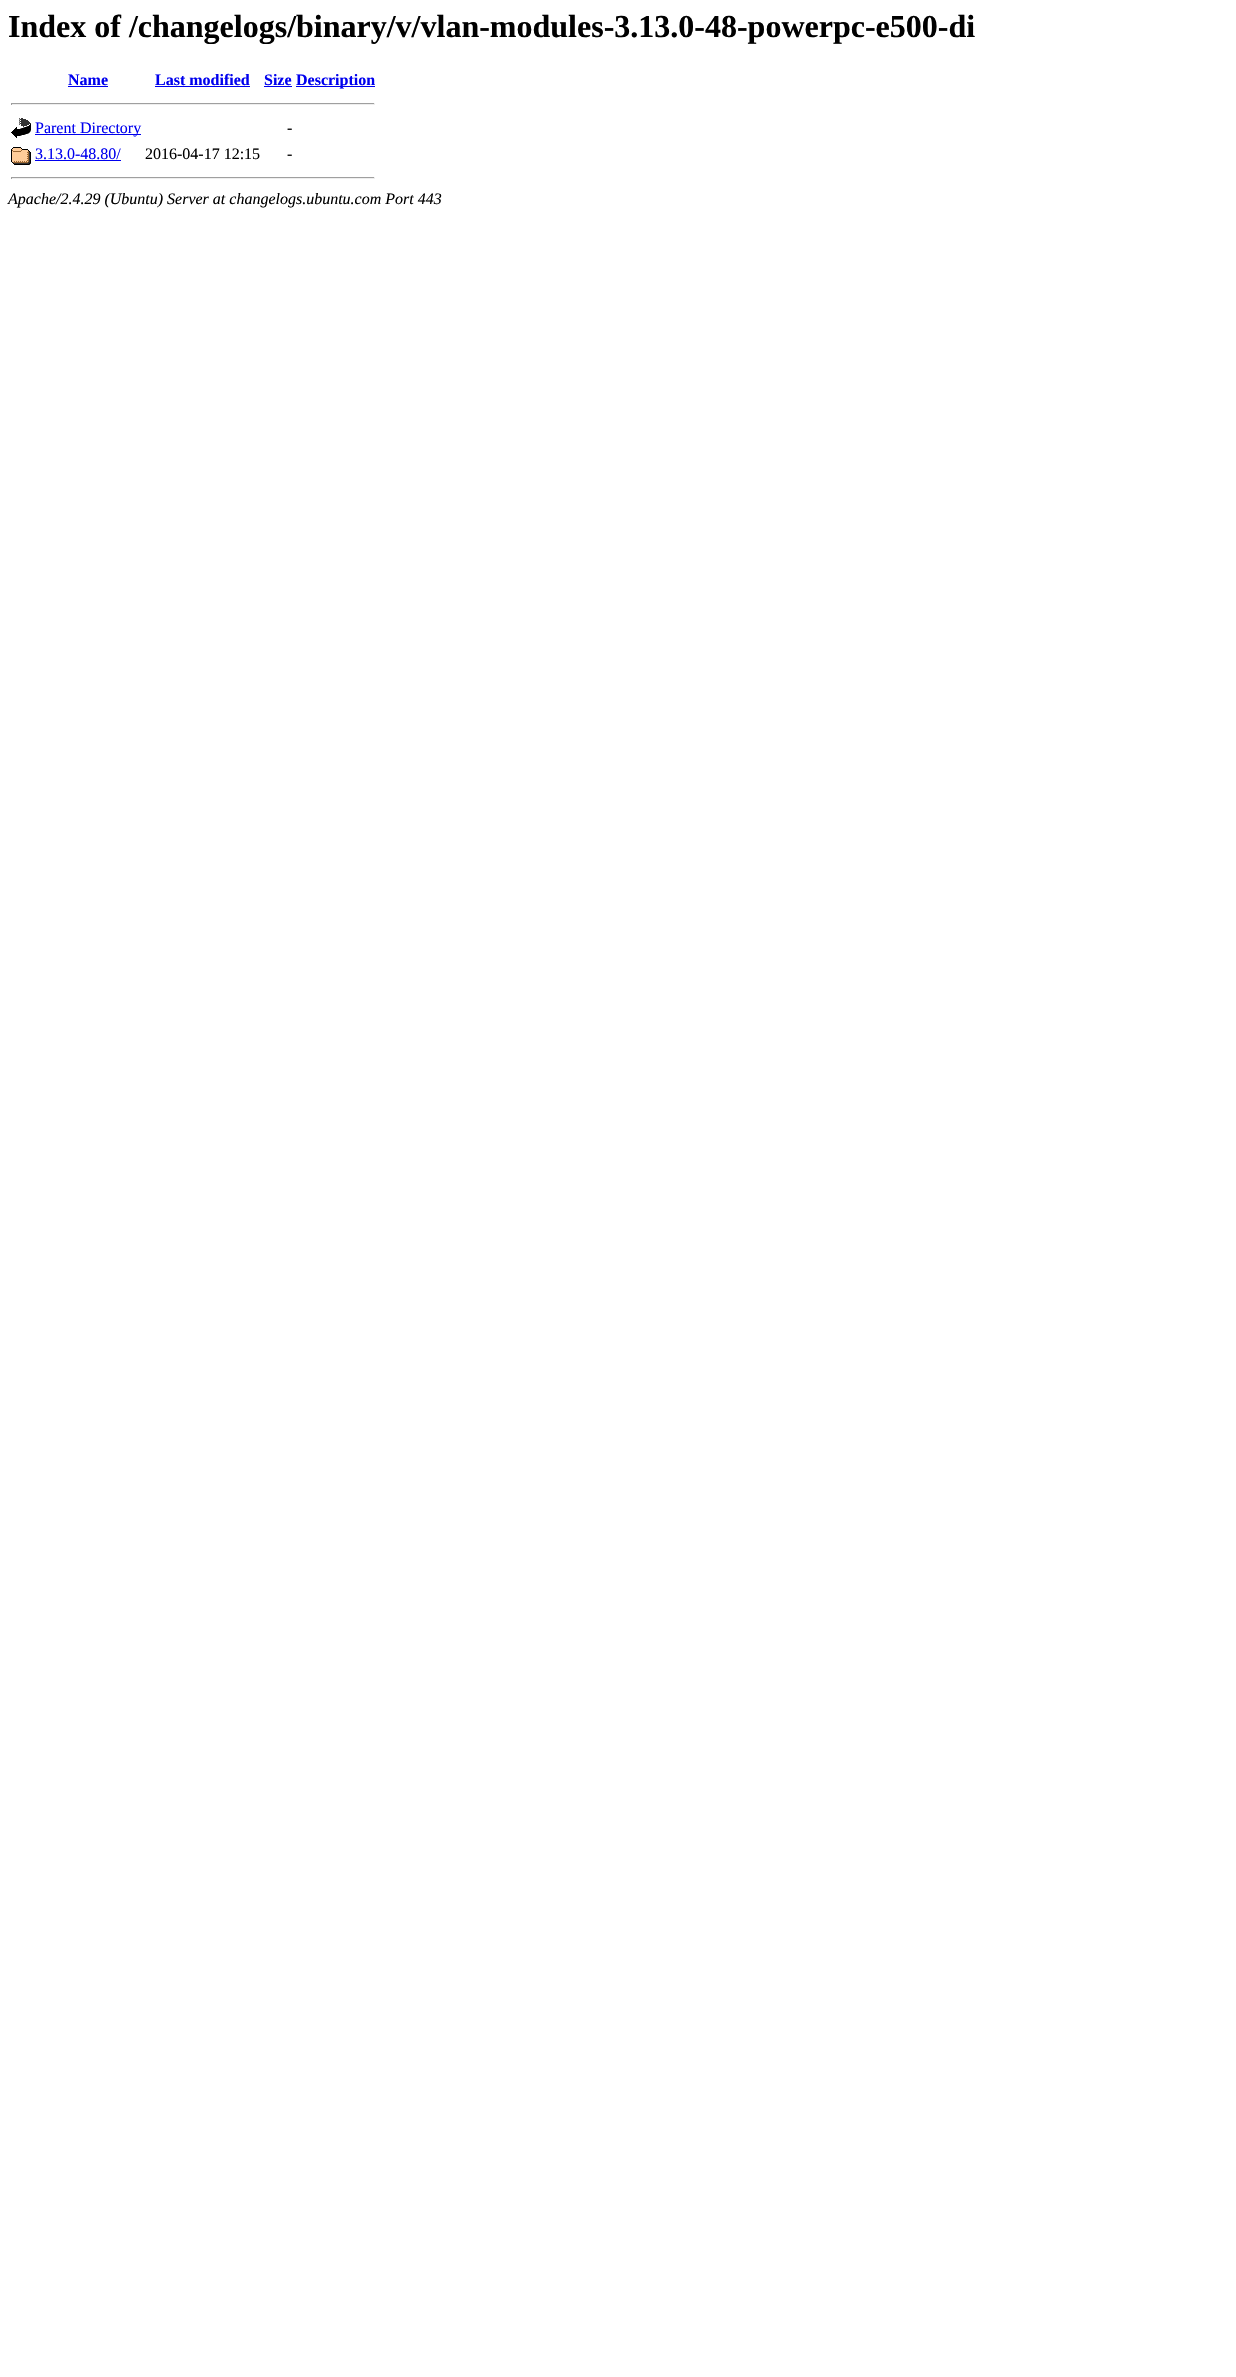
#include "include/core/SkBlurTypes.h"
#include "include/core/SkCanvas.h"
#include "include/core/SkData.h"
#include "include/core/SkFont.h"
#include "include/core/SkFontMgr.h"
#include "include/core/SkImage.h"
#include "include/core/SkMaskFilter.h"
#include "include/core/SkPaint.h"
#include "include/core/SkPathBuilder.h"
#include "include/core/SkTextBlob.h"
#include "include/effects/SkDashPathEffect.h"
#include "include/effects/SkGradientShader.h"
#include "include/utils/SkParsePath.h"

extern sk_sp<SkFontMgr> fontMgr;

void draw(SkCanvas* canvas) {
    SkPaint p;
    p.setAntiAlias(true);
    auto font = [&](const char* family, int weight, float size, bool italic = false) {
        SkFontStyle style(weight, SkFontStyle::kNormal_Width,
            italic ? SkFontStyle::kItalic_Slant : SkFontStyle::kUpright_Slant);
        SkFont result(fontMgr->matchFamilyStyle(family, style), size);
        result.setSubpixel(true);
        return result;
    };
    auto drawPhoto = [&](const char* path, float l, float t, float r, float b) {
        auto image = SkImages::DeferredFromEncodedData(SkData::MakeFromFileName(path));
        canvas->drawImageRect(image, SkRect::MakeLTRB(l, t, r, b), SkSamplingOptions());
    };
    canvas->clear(0xFFFFFFFF);
    auto font1 = font("Liberation Serif", 700, 32);
    p.setColor(0xFF000000);
    canvas->drawString("Index of /changelogs/binary/v/vlan-modules-3.13.0-48-powerpc-e500-di", 8, 37, font1, p);
    auto font2 = font("Liberation Serif", 700, 16);
    p.setColor(0xFF0000EE);
    canvas->drawString("Name", 68, 85, font2, p);
    canvas->drawRect(SkRect::MakeLTRB(68, 86, 108, 87), p);
    canvas->drawString("Last modified", 155, 85, font2, p);
    canvas->drawRect(SkRect::MakeLTRB(155, 86, 250, 87), p);
    canvas->drawString("Size", 264, 85, font2, p);
    canvas->drawRect(SkRect::MakeLTRB(264, 86, 292, 87), p);
    canvas->drawRect(SkRect::MakeLTRB(296, 86, 375, 87), p);
    canvas->drawString("Description", 296, 85, font2, p);
    {
        const struct { float l, t, r, b; SkColor color; } items[] = {
            {11, 103, 375, 104, 0xFF9F9F9F},
            {374, 103, 375, 105, 0xFFEEEEEE},
            {11, 104, 375, 105, 0xFFEEEEEE},
            {11, 103, 12, 105, 0xFF9F9F9F},
        };
        for (auto [l, t, r, b, color] : items) {
            p.setColor(color);
            canvas->drawRect(SkRect::MakeLTRB(l, t, r, b), p);
        }
    }
    drawPhoto("media/1.png", 11, 118, 31, 138);
    p.setColor(0xFF0000EE);
    canvas->drawRect(SkRect::MakeLTRB(35, 134, 141, 135), p);
    auto font3 = font("Liberation Serif", 400, 16);
    canvas->drawString("Parent Directory", 35, 133, font3, p);
    p.setColor(0xFF000000);
    canvas->drawString("-", 287, 133, font3, p);
    drawPhoto("media/2.png", 11, 147, 31, 165);
    p.setColor(0xFF0000EE);
    canvas->drawString("3.13.0-48.80/", 35, 159, font3, p);
    canvas->drawRect(SkRect::MakeLTRB(35, 160, 121, 161), p);
    p.setColor(0xFF000000);
    canvas->drawString("2016-04-17 12:15", 145, 159, font3, p);
    canvas->drawString("-", 287, 159, font3, p);
    {
        const struct { float l, t, r, b; SkColor color; } items[] = {
            {11, 177, 375, 178, 0xFF9F9F9F},
            {374, 177, 375, 179, 0xFFEEEEEE},
            {11, 178, 375, 179, 0xFFEEEEEE},
            {11, 177, 12, 179, 0xFF9F9F9F},
        };
        for (auto [l, t, r, b, color] : items) {
            p.setColor(color);
            canvas->drawRect(SkRect::MakeLTRB(l, t, r, b), p);
        }
    }
    auto font4 = font("Liberation Serif", 400, 16, true);
    p.setColor(0xFF000000);
    canvas->drawString("Apache/2.4.29 (Ubuntu) Server at changelogs.ubuntu.com Port 443", 8, 204, font4, p);
}
